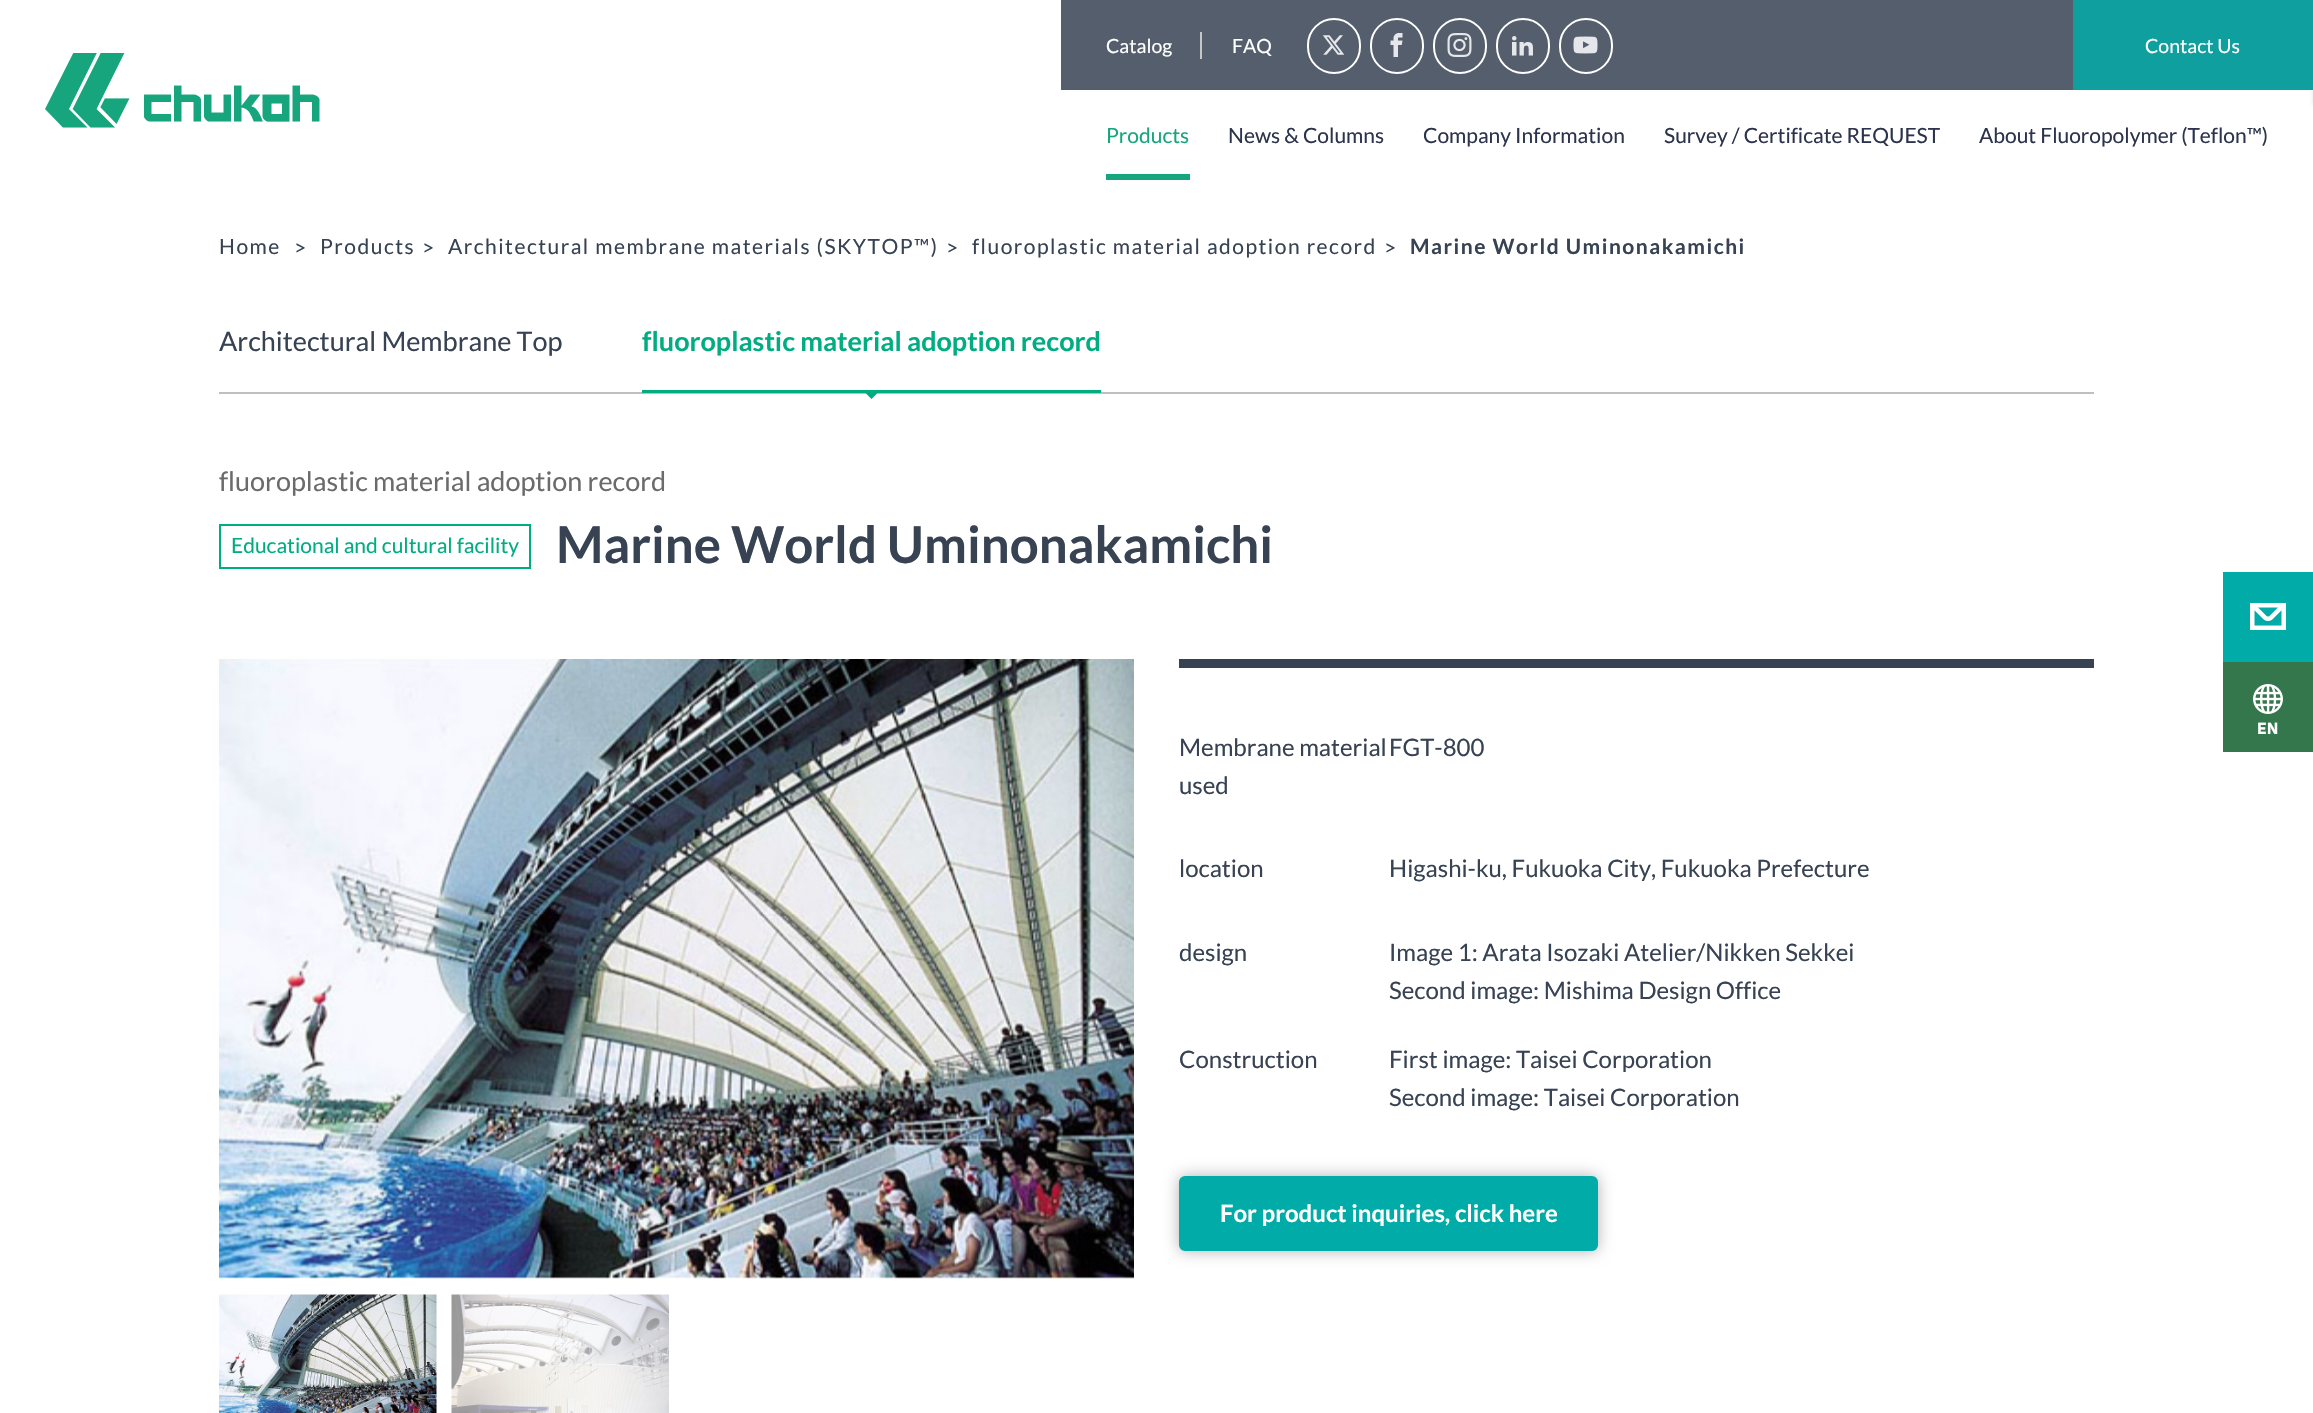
#include "include/core/SkBlurTypes.h"
#include "include/core/SkCanvas.h"
#include "include/core/SkData.h"
#include "include/core/SkFont.h"
#include "include/core/SkFontMgr.h"
#include "include/core/SkImage.h"
#include "include/core/SkMaskFilter.h"
#include "include/core/SkPaint.h"
#include "include/core/SkPathBuilder.h"
#include "include/core/SkTextBlob.h"
#include "include/effects/SkDashPathEffect.h"
#include "include/effects/SkGradientShader.h"
#include "include/utils/SkParsePath.h"

extern sk_sp<SkFontMgr> fontMgr;

void draw(SkCanvas* canvas) {
    SkPaint p;
    p.setAntiAlias(true);
    auto font = [&](const char* family, int weight, float size, bool italic = false) {
        SkFontStyle style(weight, SkFontStyle::kNormal_Width,
            italic ? SkFontStyle::kItalic_Slant : SkFontStyle::kUpright_Slant);
        SkFont result(fontMgr->matchFamilyStyle(family, style), size);
        result.setSubpixel(true);
        return result;
    };
    auto drawTracked = [&](const char* s, float x, float y, const SkFont& font, const SkPaint& ink, float letter, float word) {
        std::vector<SkGlyphID> glyphs(font.countText(s, strlen(s), SkTextEncoding::kUTF8));
        std::vector<float> xs(glyphs.size());
        font.textToGlyphs(s, strlen(s), SkTextEncoding::kUTF8, glyphs);
        font.getXPos(glyphs, xs, x);
        float extra = 0;
        for (size_t i = 0; i < glyphs.size(); i++) {
            xs[i] += extra;
            extra += letter + word * (glyphs[i] == font.unicharToGlyph(' '));
        }
        canvas->drawTextBlob(SkTextBlob::MakeFromPosHGlyphs(glyphs, xs, y, font), 0, 0, ink);
    };
    auto drawPhoto = [&](const char* path, float l, float t, float r, float b) {
        auto image = SkImages::DeferredFromEncodedData(SkData::MakeFromFileName(path));
        canvas->drawImageRect(image, SkRect::MakeLTRB(l, t, r, b), SkSamplingOptions());
    };
    canvas->clear(0xFFFFFFFF);
    drawPhoto("media/1.png", 45, 53, 320, 128);
    p.setColor(0xD9374252);
    canvas->drawRect(SkRect::MakeLTRB(1061, 0, 2073, 90), p);
    auto font1 = font("Lato", 400, 19.5f);
    p.setColor(0xFFFFFFFF);
    canvas->drawString("Catalog", 1106, 53, font1, p);
    p.setColor(0xFFC5C5C5);
    canvas->drawRect(SkRect::MakeLTRB(1200, 32, 1202, 59), p);
    p.setColor(0xFFFFFFFF);
    canvas->drawString("FAQ", 1232, 53, font1, p);
    p.setStyle(SkPaint::kStroke_Style);
    p.setStrokeWidth(2);
    canvas->drawRoundRect(SkRect::MakeLTRB(1308, 19, 1360, 73), 26, 26, p);
    drawPhoto("media/2.png", 1322, 35, 1345, 55);
    canvas->drawRoundRect(SkRect::MakeLTRB(1371, 19, 1423, 73), 26, 26, p);
    drawPhoto("media/3.png", 1390, 33, 1403, 57);
    canvas->drawRoundRect(SkRect::MakeLTRB(1434, 19, 1486, 73), 26, 26, p);
    drawPhoto("media/4.png", 1447, 33, 1472, 57);
    canvas->drawRoundRect(SkRect::MakeLTRB(1497, 19, 1549, 73), 26, 26, p);
    drawPhoto("media/5.png", 1512, 36, 1533, 56);
    canvas->drawRoundRect(SkRect::MakeLTRB(1560, 19, 1612, 73), 26, 26, p);
    drawPhoto("media/6.png", 1573, 36, 1598, 54);
    p.setStyle(SkPaint::kFill_Style);
    p.setColor(0x1A000000);
    p.setMaskFilter(SkMaskFilter::MakeBlur(kNormal_SkBlurStyle, 2));
    canvas->drawRect(SkRect::MakeLTRB(2313, 0, 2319, 105), p);
    p.setMaskFilter(nullptr);
    p.setColor(0xFF0E9F9E);
    canvas->drawRect(SkRect::MakeLTRB(2073, 0, 2313, 90), p);
    p.setColor(0xFFFFFFFF);
    canvas->drawString("Contact Us", 2145, 53, font1, p);
    auto font2 = font("Lato", 400, 21);
    p.setColor(0xFF17A57E);
    canvas->drawString("Products", 1106, 143, font2, p);
    canvas->drawRect(SkRect::MakeLTRB(1106, 174, 1190, 180), p);
    p.setColor(0xFF2C334C);
    {
        const struct { const char* s; float x, y; } items[] = {
            {"News & Columns", 1228, 143},
            {"Company Information", 1423, 143},
            {"Survey / Certificate REQUEST", 1664, 143},
            {"About Fluoropolymer (Teflon™)", 1979, 143},
        };
        for (auto [s, x, y] : items) {
            canvas->drawString(s, x, y, font2, p);
        }
    }
    p.setColor(0xFF374252);
    {
        const struct { const char* s; float x, y; } items[] = {
            {"Home", 219, 254},
            {">", 294, 255},
            {"Products", 320, 254},
            {">", 422, 255},
            {"Architectural membrane materials (SKYTOP™)", 448, 254},
            {">", 946, 255},
            {"fluoroplastic material adoption record", 972, 254},
            {">", 1384, 255},
        };
        for (auto [s, x, y] : items) {
            drawTracked(s, x, y, font2, p, 1.5f, 0);
        }
    }
    auto font3 = font("Lato", 700, 21);
    drawTracked("Marine World Uminonakamichi", 1410, 254, font3, p, 1.5f, 0);
    p.setColor(0xFFBFBFBF);
    canvas->drawRect(SkRect::MakeLTRB(219, 392, 2094, 394), p);
    auto font4 = font("Lato", 400, 27);
    p.setColor(0xFF374252);
    canvas->drawString("Architectural Membrane Top", 219, 351, font4, p);
    auto font5 = font("Lato", 700, 27);
    p.setColor(0xFF00AD82);
    canvas->drawString("fluoroplastic material adoption record", 642, 351, font5, p);
    p.setColor(0xFF00AC80);
    canvas->drawRect(SkRect::MakeLTRB(642, 390, 1101, 393), p);
    canvas->drawPath(SkPathBuilder().moveTo(864, 391.5f).lineTo(879, 391.5f).lineTo(871.5f, 399).close().detach(), p);
    p.setColor(0xFF6B6B6B);
    canvas->drawString("fluoroplastic material adoption record", 219, 491, font4, p);
    p.setStyle(SkPaint::kStroke_Style);
    p.setColor(0xFF00AD82);
    canvas->drawRect(SkRect::MakeLTRB(220, 525, 530, 568), p);
    p.setStyle(SkPaint::kFill_Style);
    canvas->drawString("Educational and cultural facility", 231, 553, font2, p);
    auto font6 = font("Lato", 700, 51);
    p.setColor(0xFF374252);
    canvas->drawString("Marine World Uminonakamichi", 556, 563, font6, p);
    drawPhoto("media/7.png", 219, 659, 1134, 1279);
    drawPhoto("media/8.png", 219, 1294, 437, 1413);
    drawPhoto("media/9.png", 451, 1294, 669, 1413);
    canvas->drawRect(SkRect::MakeLTRB(1179, 659, 2094, 668), p);
    auto font7 = font("Lato", 400, 24);
    {
        const struct { const char* s; float x, y; } items[] = {
            {"Membrane material", 1179, 756},
            {"used", 1179, 794},
            {"FGT-800", 1389, 756},
            {"location", 1179, 877},
            {"Higashi-ku, Fukuoka City, Fukuoka Prefecture", 1389, 877},
            {"design", 1179, 961},
            {"Image 1: Arata Isozaki Atelier/Nikken Sekkei", 1389, 961},
            {"Second image: Mishima Design Office", 1389, 999},
            {"Construction", 1179, 1068},
            {"First image: Taisei Corporation", 1389, 1068},
            {"Second image: Taisei Corporation", 1389, 1106},
        };
        for (auto [s, x, y] : items) {
            canvas->drawString(s, x, y, font7, p);
        }
    }
    p.setColor(0x4D000000);
    p.setMaskFilter(SkMaskFilter::MakeBlur(kNormal_SkBlurStyle, 7.5f));
    canvas->drawRoundRect(SkRect::MakeLTRB(1179, 1176, 1598, 1251), 6, 6, p);
    p.setMaskFilter(nullptr);
    p.setColor(0xFF01ABA7);
    canvas->drawRoundRect(SkRect::MakeLTRB(1180, 1177, 1597, 1250), 5, 5, p);
    p.setStyle(SkPaint::kStroke_Style);
    canvas->drawRoundRect(SkRect::MakeLTRB(1180, 1177, 1597, 1250), 5, 5, p);
    auto font8 = font("Lato", 700, 24);
    p.setStyle(SkPaint::kFill_Style);
    p.setColor(0xFFFFFFFF);
    canvas->drawString("For product inquiries, click here", 1220, 1222, font8, p);
    p.setColor(0xFF01ABA7);
    canvas->drawRect(SkRect::MakeLTRB(2223, 572, 2313, 662), p);
    drawPhoto("media/10.png", 2250, 603, 2286, 630);
    p.setColor(0xFF35774D);
    canvas->drawRect(SkRect::MakeLTRB(2223, 662, 2313, 752), p);
    drawPhoto("media/11.png", 2253, 684, 2283, 714);
    auto font9 = font("IBM Plex Sans", 700, 16);
    p.setColor(0xFFFFFFFF);
    canvas->drawString("EN", 2257, 734, font9, p);
}
